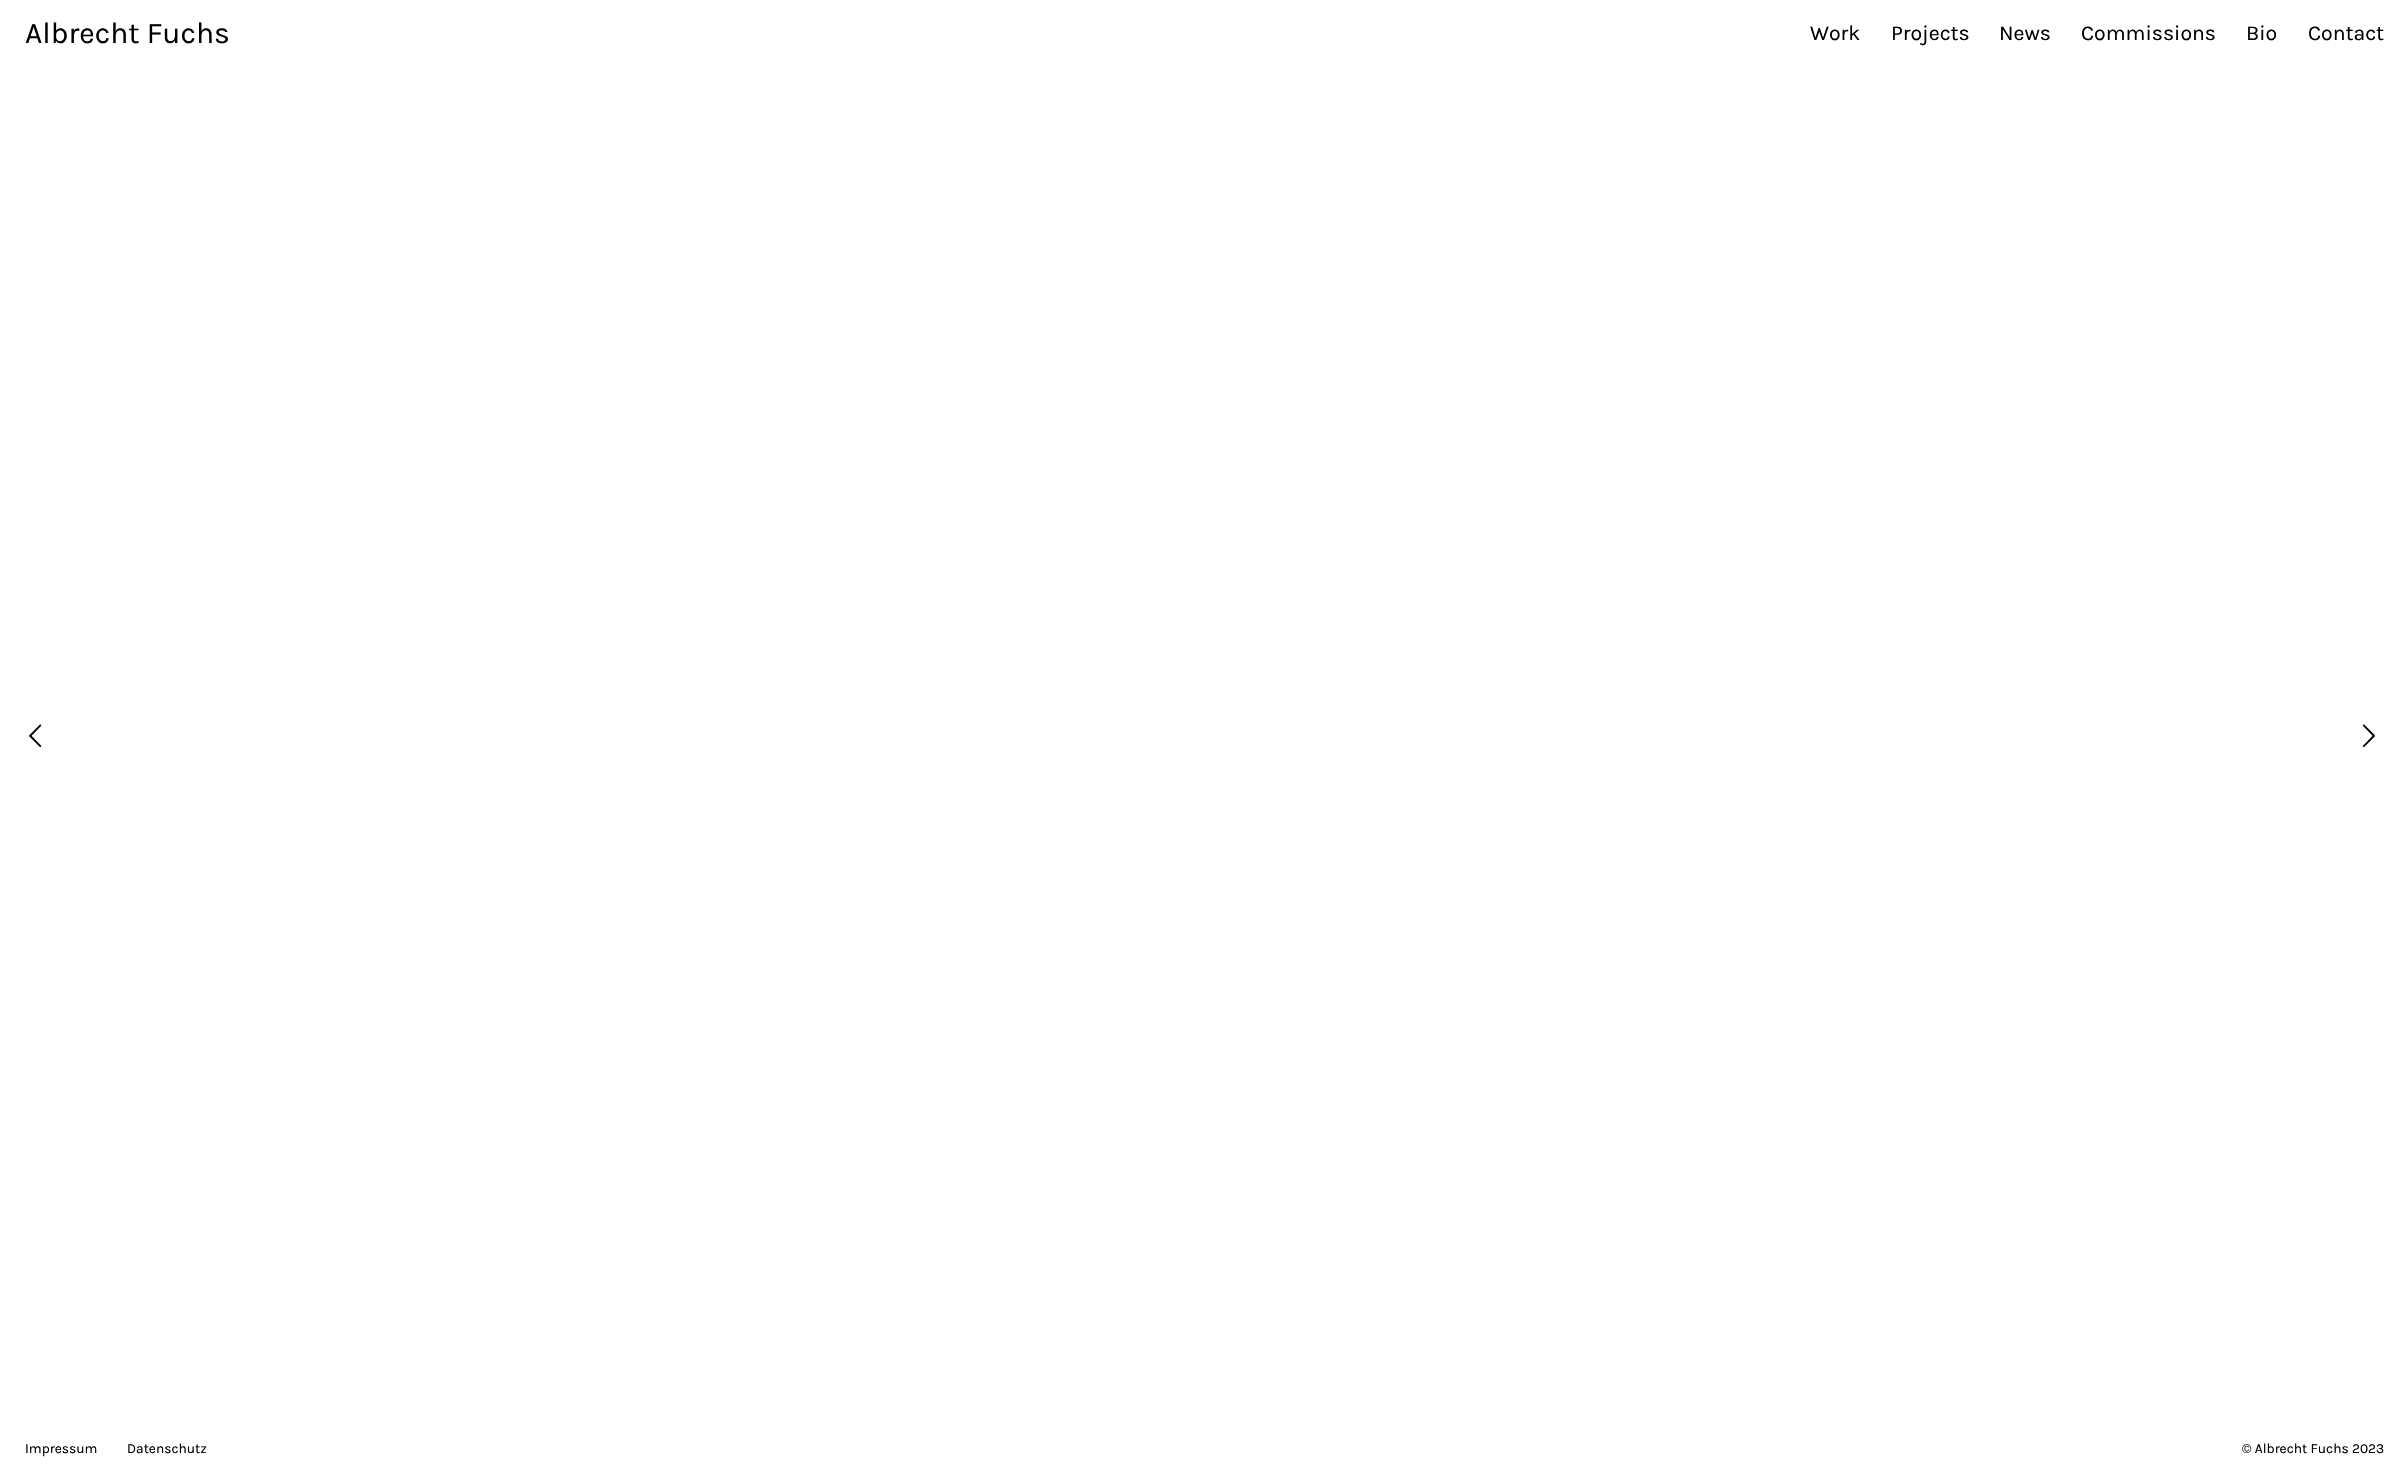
#include "include/core/SkBlurTypes.h"
#include "include/core/SkCanvas.h"
#include "include/core/SkData.h"
#include "include/core/SkFont.h"
#include "include/core/SkFontMgr.h"
#include "include/core/SkImage.h"
#include "include/core/SkMaskFilter.h"
#include "include/core/SkPaint.h"
#include "include/core/SkPathBuilder.h"
#include "include/core/SkTextBlob.h"
#include "include/effects/SkDashPathEffect.h"
#include "include/effects/SkGradientShader.h"
#include "include/utils/SkParsePath.h"

extern sk_sp<SkFontMgr> fontMgr;

void draw(SkCanvas* canvas) {
    SkPaint p;
    p.setAntiAlias(true);
    auto font = [&](const char* family, int weight, float size, bool italic = false) {
        SkFontStyle style(weight, SkFontStyle::kNormal_Width,
            italic ? SkFontStyle::kItalic_Slant : SkFontStyle::kUpright_Slant);
        SkFont result(fontMgr->matchFamilyStyle(family, style), size);
        result.setSubpixel(true);
        return result;
    };
    auto drawPhoto = [&](const char* path, float l, float t, float r, float b) {
        auto image = SkImages::DeferredFromEncodedData(SkData::MakeFromFileName(path));
        canvas->drawImageRect(image, SkRect::MakeLTRB(l, t, r, b), SkSamplingOptions());
    };
    canvas->clear(0xFFFFFFFF);
    auto font1 = font("Karla", 400, 30);
    p.setColor(0xFF000000);
    canvas->drawString("Albrecht Fuchs", 25, 43, font1, p);
    auto font2 = font("Karla", 400, 21.25f);
    {
        const struct { const char* s; float x, y; } items[] = {
            {"Work", 1810, 40},
            {"Projects", 1891, 40},
            {"News", 1999, 40},
            {"Commissions", 2081, 40},
            {"Bio", 2246, 40},
            {"Contact", 2308, 40},
        };
        for (auto [s, x, y] : items) {
            canvas->drawString(s, x, y, font2, p);
        }
    }
    drawPhoto("media/1.png", 29, 724, 42, 748);
    drawPhoto("media/2.png", 2362, 724, 2375, 748);
    auto font3 = font("Karla", 400, 13.75f);
    {
        const struct { const char* s; float x, y; } items[] = {
            {"Impressum", 25, 1453},
            {"Datenschutz", 127, 1453},
            {"© Albrecht Fuchs 2023", 2242, 1453},
        };
        for (auto [s, x, y] : items) {
            canvas->drawString(s, x, y, font3, p);
        }
    }
}
